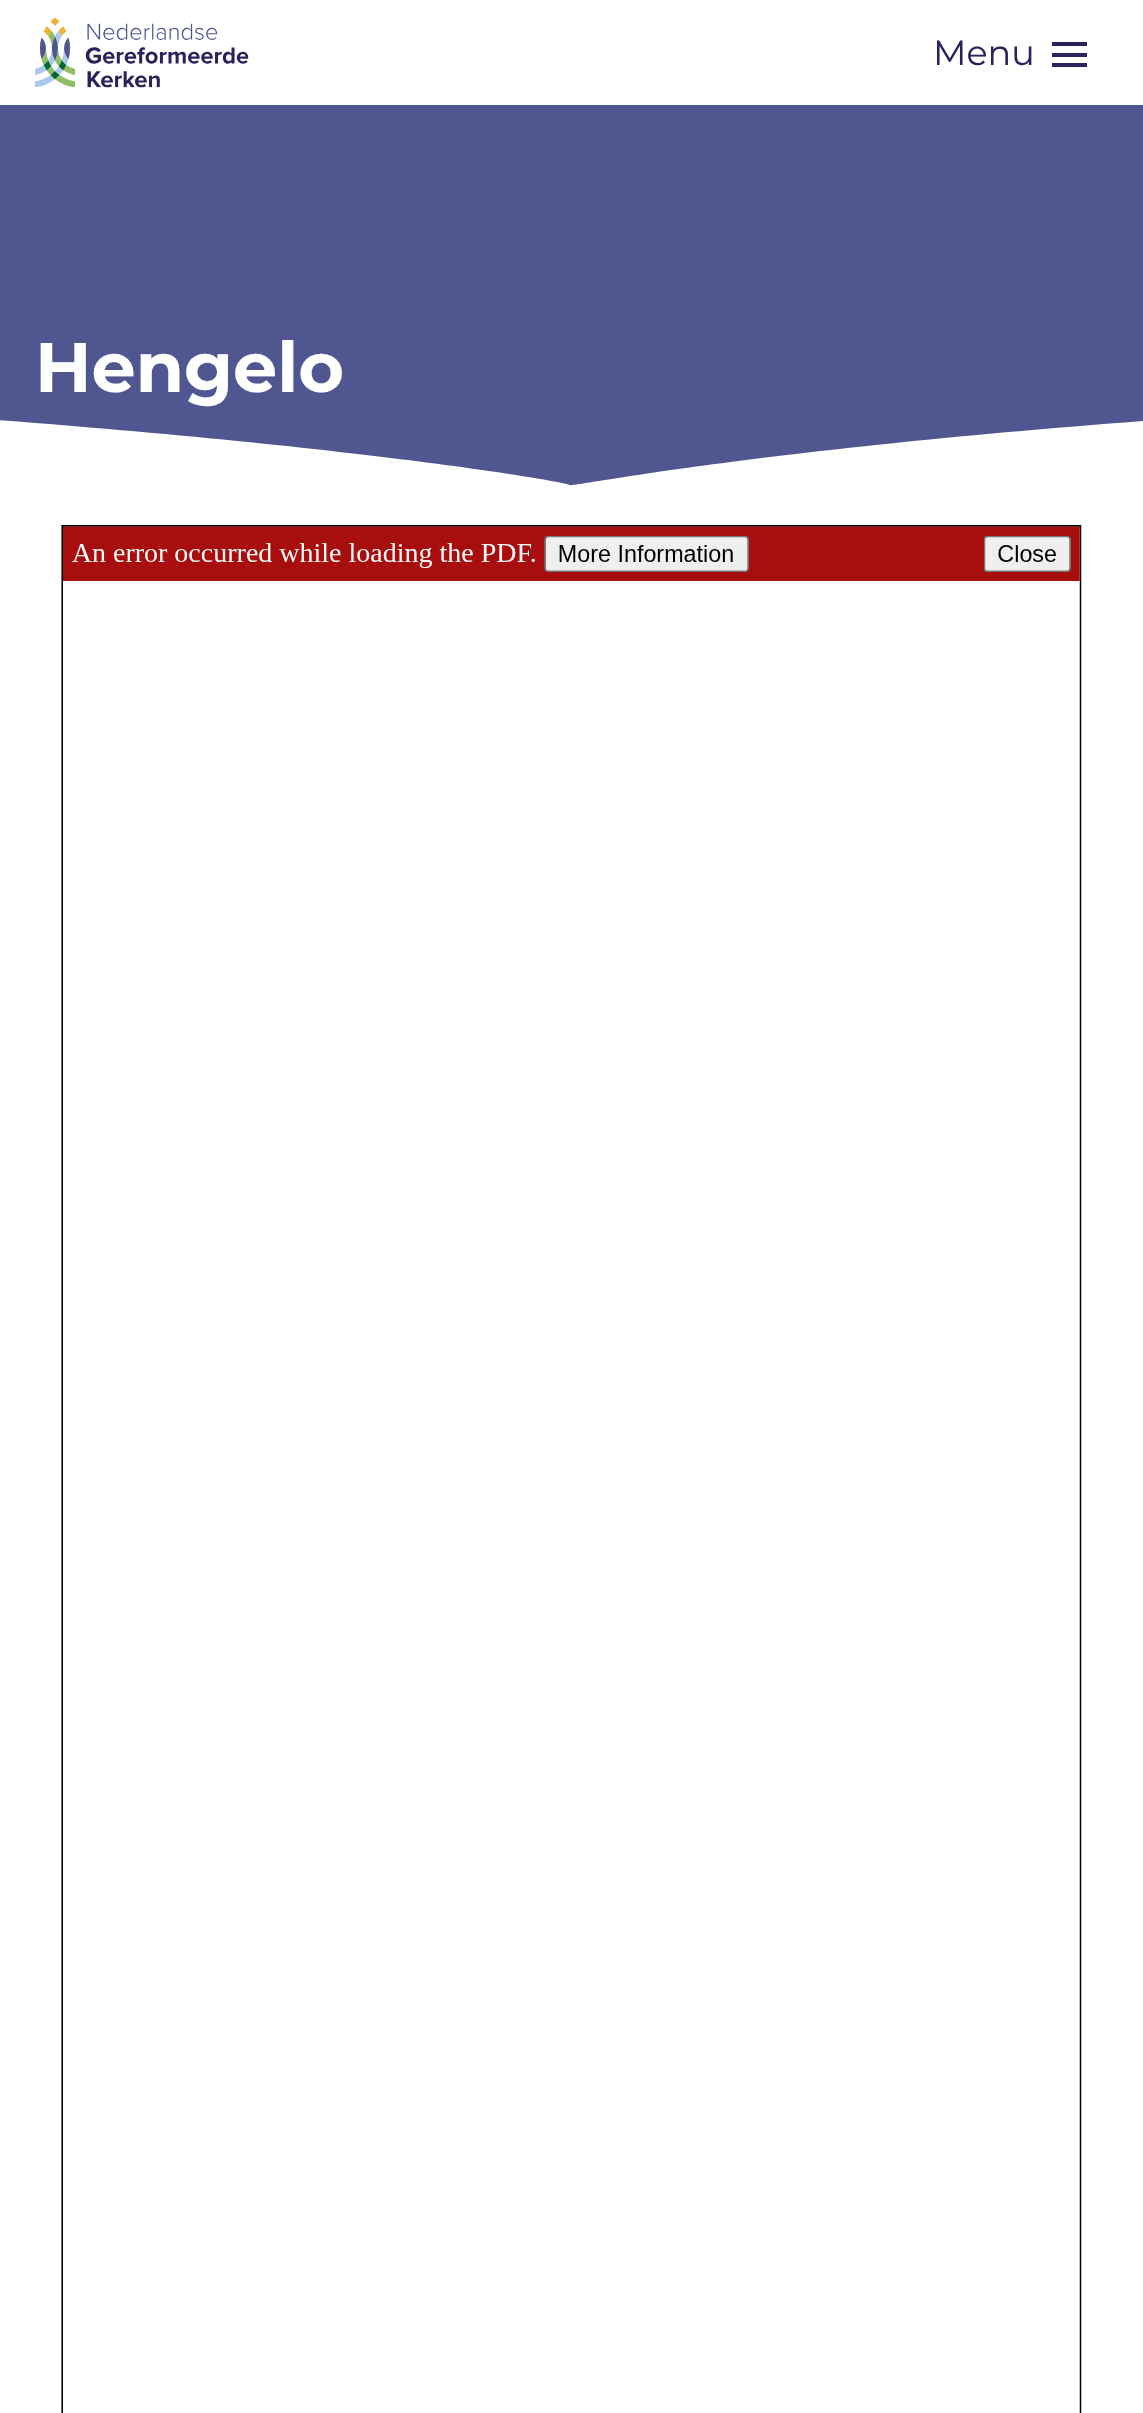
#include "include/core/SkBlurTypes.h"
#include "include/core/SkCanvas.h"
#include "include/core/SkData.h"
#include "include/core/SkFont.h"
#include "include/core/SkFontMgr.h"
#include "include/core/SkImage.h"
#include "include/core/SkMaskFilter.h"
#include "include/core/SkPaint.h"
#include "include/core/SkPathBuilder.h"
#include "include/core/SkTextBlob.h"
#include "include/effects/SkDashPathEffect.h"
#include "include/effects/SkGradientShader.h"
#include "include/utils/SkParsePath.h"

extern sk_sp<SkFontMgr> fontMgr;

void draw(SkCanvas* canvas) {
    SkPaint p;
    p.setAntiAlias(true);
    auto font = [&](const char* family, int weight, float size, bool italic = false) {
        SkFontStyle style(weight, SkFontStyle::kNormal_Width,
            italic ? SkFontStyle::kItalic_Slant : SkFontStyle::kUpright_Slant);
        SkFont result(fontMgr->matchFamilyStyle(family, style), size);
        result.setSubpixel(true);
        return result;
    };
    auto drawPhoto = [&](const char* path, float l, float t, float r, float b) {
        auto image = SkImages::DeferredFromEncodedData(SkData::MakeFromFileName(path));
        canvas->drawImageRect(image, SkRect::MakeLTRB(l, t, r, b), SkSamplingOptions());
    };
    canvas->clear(0xFFFFFFFF);
    drawPhoto("media/1.png", 35, 18, 249, 88);
    auto font1 = font("Montserrat", 400, 35);
    p.setColor(0xFF29235C);
    canvas->drawString("Menu", 933, 65, font1, p);
    {
        const struct { float l, t, r, b; SkColor color; } items[] = {
            {1052, 53, 1087, 57, 0xFF29235C},
            {1052, 42, 1087, 46, 0xFF29235C},
            {1052, 63, 1087, 67, 0xFF29235C},
            {0, 105, 1143, 486, 0xFF50568F},
        };
        for (auto [l, t, r, b, color] : items) {
            p.setColor(color);
            canvas->drawRect(SkRect::MakeLTRB(l, t, r, b), p);
        }
    }
    auto font2 = font("Montserrat", 700, 70);
    p.setColor(0xFFFFFFFF);
    canvas->drawString("Hengelo", 35, 392, font2, p);
    canvas->drawPath(SkPathBuilder().moveTo(570, 485).cubicTo(571, 489, 986, 396, 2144, 380).lineTo(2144, 492).lineTo(-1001, 492).lineTo(-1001, 397).lineTo(-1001, 378).cubicTo(59, 393, 570, 481, 570, 485).close().detach(), p);
    drawPhoto("media/2.png", 61, 525, 1082, 2413);
}
